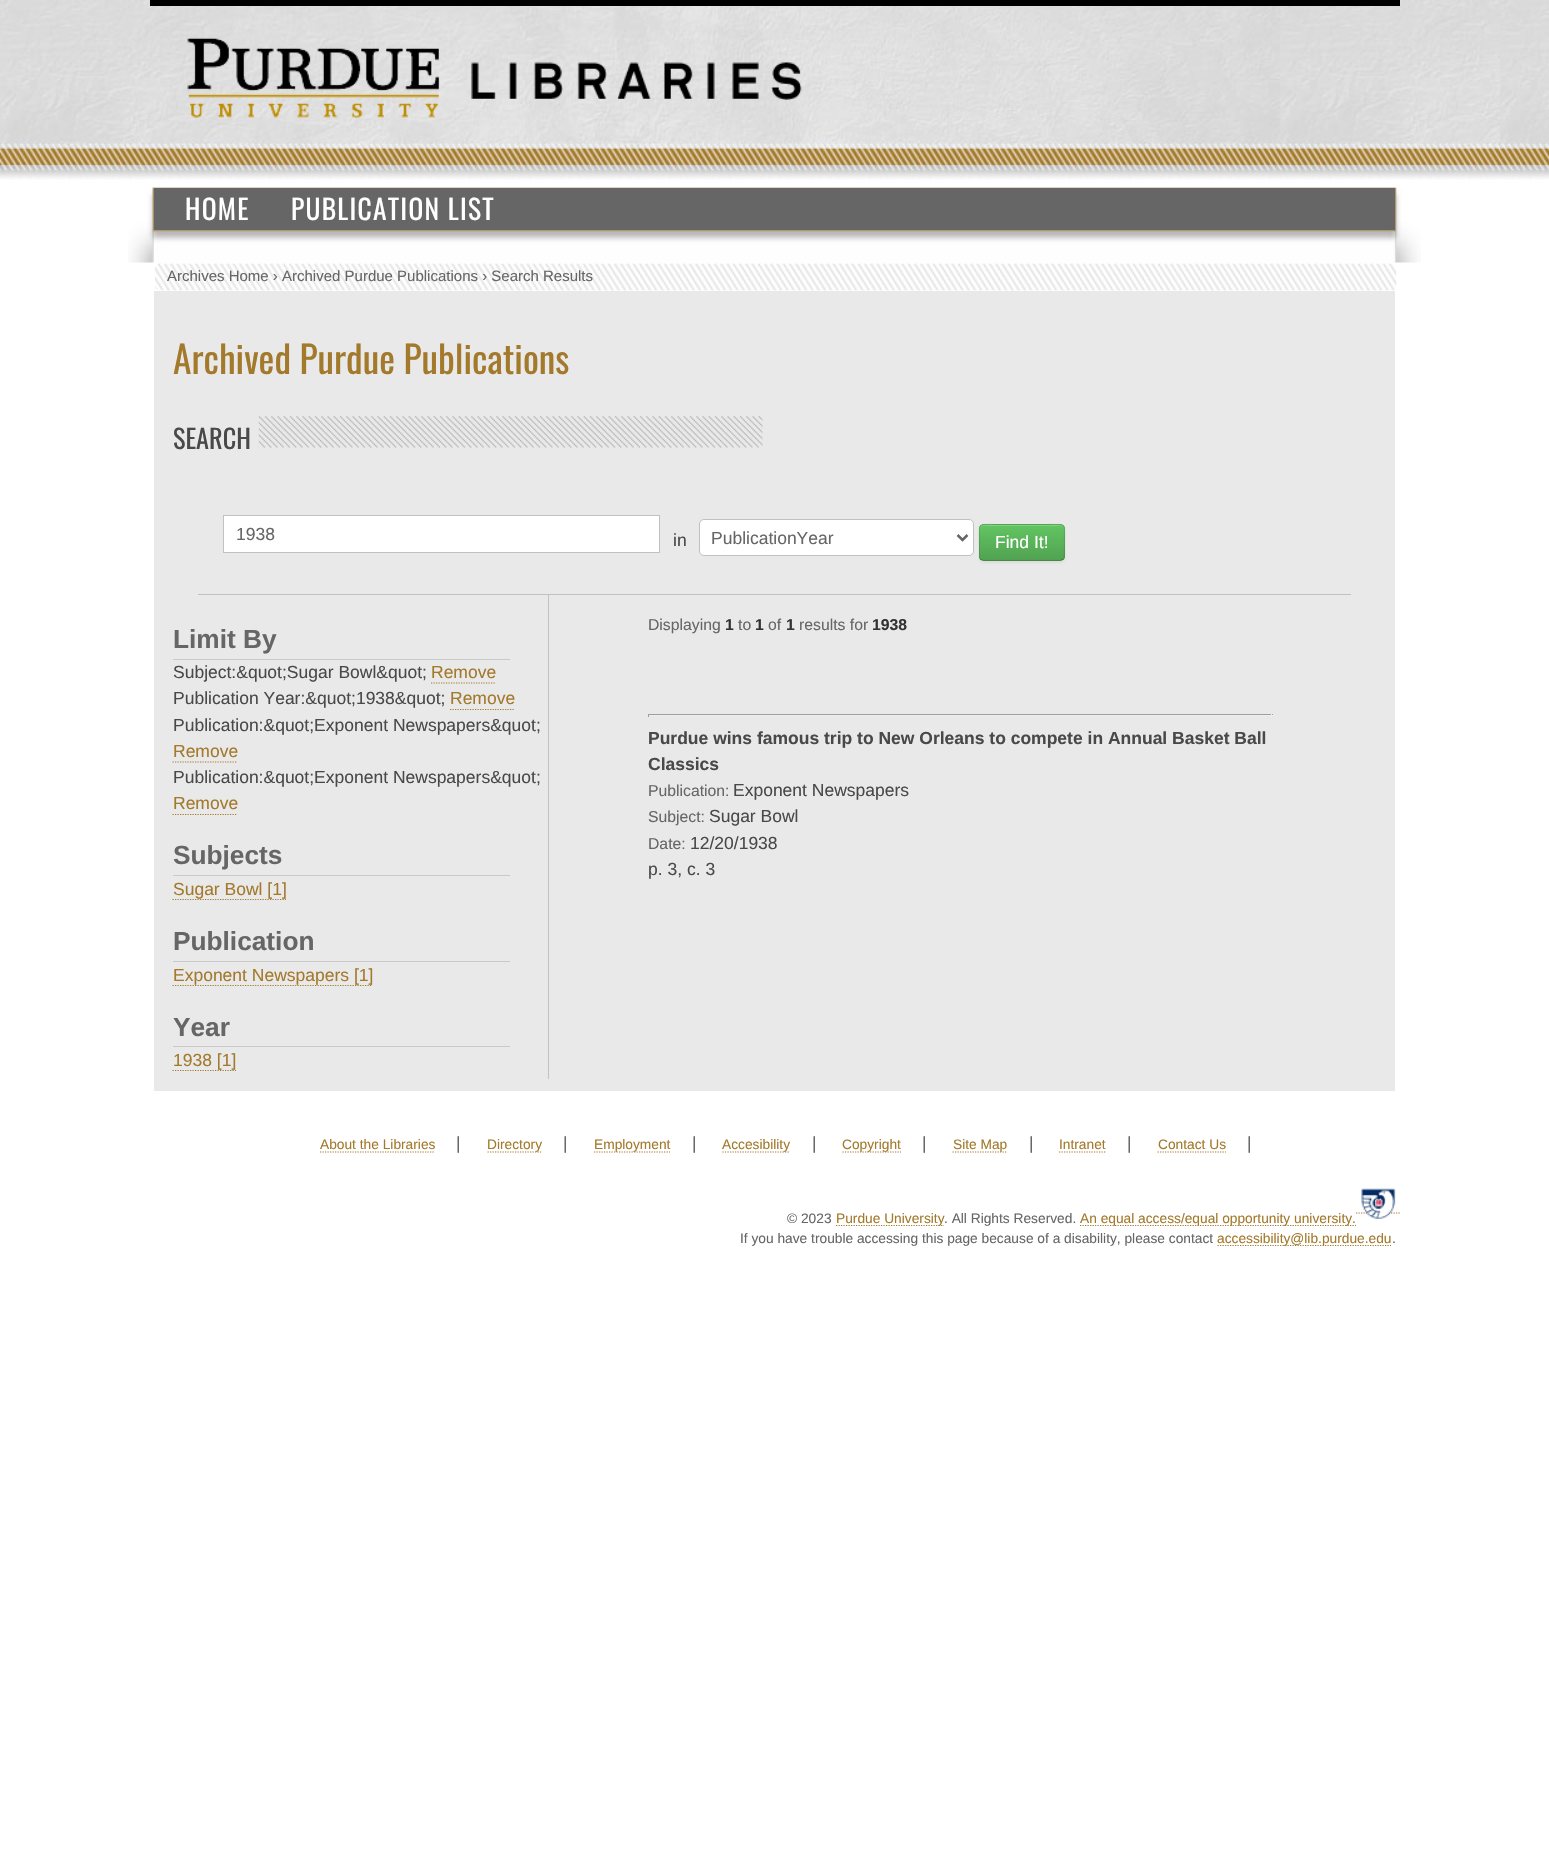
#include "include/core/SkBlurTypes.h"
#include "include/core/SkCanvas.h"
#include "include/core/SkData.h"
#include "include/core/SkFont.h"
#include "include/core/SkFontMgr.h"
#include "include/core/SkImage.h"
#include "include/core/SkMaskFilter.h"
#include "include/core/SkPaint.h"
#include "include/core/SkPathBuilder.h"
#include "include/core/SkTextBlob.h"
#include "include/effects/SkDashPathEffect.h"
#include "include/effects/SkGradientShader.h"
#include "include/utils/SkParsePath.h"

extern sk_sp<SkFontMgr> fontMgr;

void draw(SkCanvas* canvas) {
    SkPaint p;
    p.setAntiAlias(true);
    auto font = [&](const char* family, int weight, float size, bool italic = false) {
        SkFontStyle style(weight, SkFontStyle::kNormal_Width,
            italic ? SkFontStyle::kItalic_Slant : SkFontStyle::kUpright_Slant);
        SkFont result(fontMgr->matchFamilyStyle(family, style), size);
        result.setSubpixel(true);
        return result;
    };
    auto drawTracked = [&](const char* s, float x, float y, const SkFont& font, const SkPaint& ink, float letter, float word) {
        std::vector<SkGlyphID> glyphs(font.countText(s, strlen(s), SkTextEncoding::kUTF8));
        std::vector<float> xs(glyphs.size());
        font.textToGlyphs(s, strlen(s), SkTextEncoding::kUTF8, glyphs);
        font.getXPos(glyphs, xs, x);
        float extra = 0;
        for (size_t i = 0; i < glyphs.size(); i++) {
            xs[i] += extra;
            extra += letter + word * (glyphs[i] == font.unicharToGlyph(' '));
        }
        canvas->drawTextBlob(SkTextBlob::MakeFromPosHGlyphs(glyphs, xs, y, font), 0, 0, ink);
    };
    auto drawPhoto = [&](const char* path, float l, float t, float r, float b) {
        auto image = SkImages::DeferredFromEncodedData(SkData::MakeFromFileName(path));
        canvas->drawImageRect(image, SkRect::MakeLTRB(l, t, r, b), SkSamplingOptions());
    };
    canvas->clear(0xFFFFFFFF);
    drawPhoto("media/1.png", 0, 0, 1549, 180);
    p.setColor(0xFF000000);
    canvas->drawRect(SkRect::MakeLTRB(150, 0, 1400, 6), p);
    drawPhoto("media/2.png", 187, 37, 440, 118);
    drawPhoto("media/3.png", 471, 62, 802, 100);
    drawPhoto("media/4.png", 128, 187, 1421, 263);
    p.setColor(0xFF666666);
    canvas->drawRect(SkRect::MakeLTRB(154, 188, 1395, 230), p);
    auto font1 = font("Oswald", 400, 27.5f);
    p.setColor(0xFFFFFFFF);
    drawTracked("HOME", 185, 220, font1, p, 1.25f, 0);
    drawTracked("PUBLICATION LIST", 291, 220, font1, p, 1.25f, 0);
    drawPhoto("media/5.png", 155, 263, 1397, 291);
    auto font2 = font("Liberation Sans", 400, 15);
    p.setColor(0xFF666666);
    canvas->drawString("Archives Home › Archived Purdue Publications › Search Results", 167, 281, font2, p);
    p.setColor(0xFFE9E9E9);
    canvas->drawRect(SkRect::MakeLTRB(154, 291, 1395, 1091), p);
    auto font3 = font("Oswald", 400, 37.5f);
    p.setColor(0xFFA3792C);
    canvas->drawString("Archived Purdue Publications", 173, 374, font3, p);
    auto font4 = font("Oswald", 400, 26.25f);
    p.setColor(0xFF494949);
    canvas->drawString("SEARCH", 173, 449, font4, p);
    drawPhoto("media/6.png", 258, 416, 763, 448);
    p.setColor(0xFFC1C1C1);
    canvas->drawRect(SkRect::MakeLTRB(198, 594, 1351, 595), p);
    p.setColor(0xFFFFFFFF);
    canvas->drawRect(SkRect::MakeLTRB(223.5f, 515.5f, 659.5f, 552.5f), p);
    p.setStyle(SkPaint::kStroke_Style);
    p.setStrokeWidth(1);
    p.setColor(0xFFC1C1C1);
    canvas->drawRect(SkRect::MakeLTRB(223.5f, 515.5f, 659.5f, 552.5f), p);
    auto font5 = font("Liberation Sans", 400, 17.5f);
    p.setStyle(SkPaint::kFill_Style);
    p.setColor(0xFF666666);
    canvas->drawString("1938", 236, 540, font5, p);
    p.setColor(0xFF494949);
    canvas->drawString("in", 673, 546, font5, p);
    p.setColor(0xFFFFFFFF);
    canvas->drawRoundRect(SkRect::MakeLTRB(699.5f, 519.5f, 973.5f, 555.5f), 4.5f, 4.5f, p);
    p.setStyle(SkPaint::kStroke_Style);
    p.setColor(0xFFC1C1C1);
    canvas->drawRoundRect(SkRect::MakeLTRB(699.5f, 519.5f, 973.5f, 555.5f), 4.5f, 4.5f, p);
    p.setStrokeWidth(2.5f);
    p.setColor(0xFF666666);
    canvas->drawPath(SkPathBuilder().moveTo(957.5f, 535).lineTo(962.5f, 540).lineTo(967.5f, 535).detach(), p);
    p.setStyle(SkPaint::kFill_Style);
    canvas->drawString("PublicationYear", 711, 544, font5, p);
    p.setColor(0x0D000000);
    p.setMaskFilter(SkMaskFilter::MakeBlur(kNormal_SkBlurStyle, 1));
    canvas->drawRoundRect(SkRect::MakeLTRB(979, 525, 1065, 563), 5, 5, p);
    p.setMaskFilter(nullptr);
    p.setColor(0xFF5BB75B);
    canvas->drawRoundRect(SkRect::MakeLTRB(979, 524, 1065, 561), 5, 5, p);
    canvas->save();
    canvas->clipPath(SkPathBuilder().moveTo(984, 524).lineTo(1060, 524).cubicTo(1063, 524, 1065, 526, 1065, 529).lineTo(1065, 556).cubicTo(1065, 559, 1063, 561, 1060, 561).lineTo(984, 561).cubicTo(981, 561, 979, 559, 979, 556).lineTo(979, 529).cubicTo(979, 526, 981, 524, 984, 524).close().detach(), true);
    {
        const SkColor colors[] = {0xFF62C462, 0xFF51A351};
        const float stops[] = {0, 1};
        const SkPoint ends[] = {{1022, 525}, {1022, 560}};
        p.setShader(SkGradientShader::MakeLinear(ends, colors, stops, 2, SkTileMode::kClamp));
        p.setAlpha(255);
    }
    canvas->drawRect(SkRect::MakeLTRB(979, 525, 1065, 560), p);
    canvas->restore();
    p.setShader(nullptr);
    p.setColor(0x33FFFFFF);
    canvas->drawPath(SkPathBuilder().moveTo(984, 526).lineTo(1060, 526).cubicTo(1062, 526, 1064, 528, 1064, 530).cubicTo(1064, 522, 1052, 525, 1047, 525).lineTo(997, 525).cubicTo(992, 525, 980, 522, 980, 530).cubicTo(980, 528, 982, 526, 984, 526).close().detach(), p);
    p.setStyle(SkPaint::kStroke_Style);
    p.setStrokeWidth(1.2f);
    p.setColor(0x40000000);
    canvas->drawPath(SkPathBuilder().moveTo(1063, 559.5f).lineTo(1060.5f, 560.5f).lineTo(983.5f, 560.5f).lineTo(980.5f, 559.5f).detach(), p);
    p.setColor(0x1A000000);
    canvas->drawPath(SkPathBuilder().moveTo(980.5f, 559.5f).cubicTo(978.5f, 557.5f, 979.5f, 554, 979.5f, 551.5f).lineTo(979.5f, 542.5f).cubicTo(979.5f, 522.5f, 976, 524.5f, 996.5f, 524.5f).lineTo(1047.5f, 524.5f).cubicTo(1067.5f, 524.5f, 1064.5f, 522.5f, 1064.5f, 542.5f).lineTo(1064.5f, 551.5f).cubicTo(1064.5f, 554, 1065, 557.5f, 1063, 559.5f).detach(), p);
    p.setStyle(SkPaint::kFill_Style);
    p.setColor(0xFFFFFFFF);
    canvas->drawString("Find It!", 995, 548, font5, p);
    p.setColor(0xFFC3C3C3);
    canvas->drawRect(SkRect::MakeLTRB(548, 595, 549, 1079), p);
    p.setColor(0xFFC9C9C9);
    canvas->drawRect(SkRect::MakeLTRB(173, 659, 510, 660), p);
    auto font6 = font("Liberation Sans", 700, 26.25f);
    p.setColor(0xFF666666);
    canvas->drawString("Limit By", 173, 648, font6, p);
    p.setColor(0xFF494949);
    canvas->drawString("Subject:&quot;Sugar Bowl&quot;", 173, 678, font5, p);
    p.setColor(0xFFA3792C);
    canvas->drawString("Remove", 431, 678, font5, p);
    p.setStyle(SkPaint::kStroke_Style);
    p.setPathEffect(SkDashPathEffect::Make({{1.25f, 1.25f}}, 0));
    canvas->drawPath(SkPathBuilder().moveTo(431, 683).lineTo(496, 683).detach(), p);
    p.setPathEffect(nullptr);
    p.setStyle(SkPaint::kFill_Style);
    p.setColor(0xFF494949);
    canvas->drawString("Publication Year:&quot;1938&quot;", 173, 704, font5, p);
    p.setColor(0xFFA3792C);
    canvas->drawString("Remove", 450, 704, font5, p);
    p.setStyle(SkPaint::kStroke_Style);
    p.setPathEffect(SkDashPathEffect::Make({{1.25f, 1.25f}}, 0));
    canvas->drawPath(SkPathBuilder().moveTo(450, 709.5f).lineTo(515, 709.5f).detach(), p);
    p.setPathEffect(nullptr);
    p.setStyle(SkPaint::kFill_Style);
    p.setColor(0xFF494949);
    canvas->drawString("Publication:&quot;Exponent Newspapers&quot;", 173, 731, font5, p);
    p.setColor(0xFFA3792C);
    canvas->drawString("Remove", 173, 757, font5, p);
    p.setStyle(SkPaint::kStroke_Style);
    p.setPathEffect(SkDashPathEffect::Make({{1.25f, 1.25f}}, 0));
    canvas->drawPath(SkPathBuilder().moveTo(172.5f, 762).lineTo(237.5f, 762).detach(), p);
    p.setPathEffect(nullptr);
    p.setStyle(SkPaint::kFill_Style);
    p.setColor(0xFF494949);
    canvas->drawString("Publication:&quot;Exponent Newspapers&quot;", 173, 783, font5, p);
    p.setColor(0xFFA3792C);
    canvas->drawString("Remove", 173, 809, font5, p);
    p.setStyle(SkPaint::kStroke_Style);
    p.setPathEffect(SkDashPathEffect::Make({{1.25f, 1.25f}}, 0));
    canvas->drawPath(SkPathBuilder().moveTo(172.5f, 814.5f).lineTo(237.5f, 814.5f).detach(), p);
    p.setPathEffect(nullptr);
    p.setStyle(SkPaint::kFill_Style);
    p.setColor(0xFFC9C9C9);
    canvas->drawRect(SkRect::MakeLTRB(173, 875, 510, 876), p);
    p.setColor(0xFF666666);
    canvas->drawString("Subjects", 173, 864, font6, p);
    p.setStyle(SkPaint::kStroke_Style);
    p.setColor(0xFFA3792C);
    p.setPathEffect(SkDashPathEffect::Make({{1.25f, 1.25f}}, 0));
    canvas->drawPath(SkPathBuilder().moveTo(172.5f, 899.5f).lineTo(286, 899.5f).detach(), p);
    p.setPathEffect(nullptr);
    p.setStyle(SkPaint::kFill_Style);
    canvas->drawString("Sugar Bowl [1]", 173, 895, font5, p);
    p.setColor(0xFFC9C9C9);
    canvas->drawRect(SkRect::MakeLTRB(173, 961, 510, 962), p);
    p.setColor(0xFF666666);
    canvas->drawString("Publication", 173, 950, font6, p);
    p.setStyle(SkPaint::kStroke_Style);
    p.setColor(0xFFA3792C);
    p.setPathEffect(SkDashPathEffect::Make({{1.25f, 1.25f}}, 0));
    canvas->drawPath(SkPathBuilder().moveTo(172.5f, 985.5f).lineTo(372.5f, 985.5f).detach(), p);
    p.setPathEffect(nullptr);
    p.setStyle(SkPaint::kFill_Style);
    canvas->drawString("Exponent Newspapers [1]", 173, 981, font5, p);
    p.setColor(0xFFC9C9C9);
    canvas->drawRect(SkRect::MakeLTRB(173, 1046, 510, 1047), p);
    p.setColor(0xFF666666);
    canvas->drawString("Year", 173, 1036, font6, p);
    p.setStyle(SkPaint::kStroke_Style);
    p.setColor(0xFFA3792C);
    p.setPathEffect(SkDashPathEffect::Make({{1.25f, 1.25f}}, 0));
    canvas->drawPath(SkPathBuilder().moveTo(172.5f, 1070.5f).lineTo(236, 1070.5f).detach(), p);
    p.setPathEffect(nullptr);
    p.setStyle(SkPaint::kFill_Style);
    canvas->drawString("1938 [1]", 173, 1066, font5, p);
    auto font7 = font("Liberation Sans", 400, 15.75f);
    p.setColor(0xFF666666);
    canvas->drawString("Displaying", 648, 630, font7, p);
    auto font8 = font("Liberation Sans", 700, 15.75f);
    p.setColor(0xFF333333);
    canvas->drawString("1", 725, 630, font8, p);
    p.setColor(0xFF666666);
    canvas->drawString("to", 738, 630, font7, p);
    p.setColor(0xFF333333);
    canvas->drawString("1", 755, 630, font8, p);
    p.setColor(0xFF666666);
    canvas->drawString("of", 768, 630, font7, p);
    p.setColor(0xFF333333);
    canvas->drawString("1", 786, 630, font8, p);
    p.setColor(0xFF666666);
    canvas->drawString("results for", 799, 630, font7, p);
    p.setColor(0xFF333333);
    canvas->drawString("1938", 872, 630, font8, p);
    {
        const struct { float l, t, r, b; SkColor color; } items[] = {
            {648, 714, 1273, 715, 0xFF9F9F9F},
            {1271, 714, 1272, 717, 0xFFEEEEEE},
            {648, 715, 1273, 716, 0xFFEEEEEE},
            {648, 714, 649, 717, 0xFF9F9F9F},
        };
        for (auto [l, t, r, b, color] : items) {
            p.setColor(color);
            canvas->drawRect(SkRect::MakeLTRB(l, t, r, b), p);
        }
    }
    auto font9 = font("Liberation Sans", 700, 17.5f);
    p.setColor(0xFF494949);
    canvas->drawString("Purdue wins famous trip to New Orleans to compete in Annual Basket Ball", 648, 744, font9, p);
    canvas->drawString("Classics", 648, 770, font9, p);
    p.setColor(0xFF666666);
    canvas->drawString("Publication:", 648, 796, font7, p);
    p.setColor(0xFF494949);
    canvas->drawString("Exponent Newspapers", 733, 796, font5, p);
    p.setColor(0xFF666666);
    canvas->drawString("Subject:", 648, 822, font7, p);
    p.setColor(0xFF494949);
    canvas->drawString("Sugar Bowl", 709, 822, font5, p);
    p.setColor(0xFF666666);
    canvas->drawString("Date:", 648, 849, font7, p);
    p.setColor(0xFF494949);
    canvas->drawString("12/20/1938", 690, 849, font5, p);
    canvas->drawString("p. 3, c. 3", 648, 875, font5, p);
    auto font10 = font("Liberation Sans", 400, 13.75f);
    p.setColor(0xFFA3792C);
    canvas->drawString("About the Libraries", 320, 1149, font10, p);
    p.setStyle(SkPaint::kStroke_Style);
    p.setPathEffect(SkDashPathEffect::Make({{1.25f, 1.25f}}, 0));
    canvas->drawPath(SkPathBuilder().moveTo(320, 1152).lineTo(435, 1152).detach(), p);
    p.setPathEffect(nullptr);
    p.setStyle(SkPaint::kFill_Style);
    p.setColor(0xFF666666);
    canvas->drawString("|", 456, 1149, font5, p);
    p.setStyle(SkPaint::kStroke_Style);
    p.setColor(0xFFA3792C);
    p.setPathEffect(SkDashPathEffect::Make({{1.25f, 1.25f}}, 0));
    canvas->drawPath(SkPathBuilder().moveTo(487.5f, 1152).lineTo(542.5f, 1152).detach(), p);
    p.setPathEffect(nullptr);
    p.setStyle(SkPaint::kFill_Style);
    canvas->drawString("Directory", 487, 1149, font10, p);
    p.setColor(0xFF666666);
    canvas->drawString("|", 563, 1149, font5, p);
    p.setStyle(SkPaint::kStroke_Style);
    p.setColor(0xFFA3792C);
    p.setPathEffect(SkDashPathEffect::Make({{1.25f, 1.25f}}, 0));
    canvas->drawPath(SkPathBuilder().moveTo(594, 1152).lineTo(670, 1152).detach(), p);
    p.setPathEffect(nullptr);
    p.setStyle(SkPaint::kFill_Style);
    canvas->drawString("Employment", 594, 1149, font10, p);
    p.setColor(0xFF666666);
    canvas->drawString("|", 692, 1149, font5, p);
    p.setStyle(SkPaint::kStroke_Style);
    p.setColor(0xFFA3792C);
    p.setPathEffect(SkDashPathEffect::Make({{1.25f, 1.25f}}, 0));
    canvas->drawPath(SkPathBuilder().moveTo(722.5f, 1152).lineTo(790, 1152).detach(), p);
    p.setPathEffect(nullptr);
    p.setStyle(SkPaint::kFill_Style);
    canvas->drawString("Accesibility", 722, 1149, font10, p);
    p.setColor(0xFF666666);
    canvas->drawString("|", 812, 1149, font5, p);
    p.setStyle(SkPaint::kStroke_Style);
    p.setColor(0xFFA3792C);
    p.setPathEffect(SkDashPathEffect::Make({{1.25f, 1.25f}}, 0));
    canvas->drawPath(SkPathBuilder().moveTo(842.5f, 1152).lineTo(901, 1152).detach(), p);
    p.setPathEffect(nullptr);
    p.setStyle(SkPaint::kFill_Style);
    canvas->drawString("Copyright", 842, 1149, font10, p);
    p.setColor(0xFF666666);
    canvas->drawString("|", 922, 1149, font5, p);
    p.setStyle(SkPaint::kStroke_Style);
    p.setColor(0xFFA3792C);
    p.setPathEffect(SkDashPathEffect::Make({{1.25f, 1.25f}}, 0));
    canvas->drawPath(SkPathBuilder().moveTo(952.5f, 1152).lineTo(1007.5f, 1152).detach(), p);
    p.setPathEffect(nullptr);
    p.setStyle(SkPaint::kFill_Style);
    canvas->drawString("Site Map", 953, 1149, font10, p);
    p.setColor(0xFF666666);
    canvas->drawString("|", 1029, 1149, font5, p);
    p.setColor(0xFFA3792C);
    canvas->drawString("Intranet", 1059, 1149, font10, p);
    p.setStyle(SkPaint::kStroke_Style);
    p.setPathEffect(SkDashPathEffect::Make({{1.25f, 1.25f}}, 0));
    canvas->drawPath(SkPathBuilder().moveTo(1059, 1152).lineTo(1106, 1152).detach(), p);
    p.setPathEffect(nullptr);
    p.setStyle(SkPaint::kFill_Style);
    p.setColor(0xFF666666);
    canvas->drawString("|", 1127, 1149, font5, p);
    p.setColor(0xFFA3792C);
    canvas->drawString("Contact Us", 1158, 1149, font10, p);
    p.setStyle(SkPaint::kStroke_Style);
    p.setPathEffect(SkDashPathEffect::Make({{1.25f, 1.25f}}, 0));
    canvas->drawPath(SkPathBuilder().moveTo(1157.5f, 1152).lineTo(1226, 1152).detach(), p);
    p.setPathEffect(nullptr);
    p.setStyle(SkPaint::kFill_Style);
    p.setColor(0xFF666666);
    canvas->drawString("|", 1247, 1149, font5, p);
    p.setStyle(SkPaint::kStroke_Style);
    p.setColor(0xFFA3792C);
    p.setPathEffect(SkDashPathEffect::Make({{1.25f, 1.25f}}, 0));
    canvas->drawPath(SkPathBuilder().moveTo(1356, 1213).lineTo(1400, 1213).detach(), p);
    p.setPathEffect(nullptr);
    drawPhoto("media/7.png", 1361, 1188, 1396, 1219);
    p.setStyle(SkPaint::kFill_Style);
    p.setColor(0xFF666666);
    canvas->drawString("© 2023", 787, 1223, font10, p);
    p.setStyle(SkPaint::kStroke_Style);
    p.setColor(0xFFA3792C);
    p.setPathEffect(SkDashPathEffect::Make({{1.25f, 1.25f}}, 0));
    canvas->drawPath(SkPathBuilder().moveTo(836, 1225.5f).lineTo(944, 1225.5f).detach(), p);
    p.setPathEffect(nullptr);
    p.setStyle(SkPaint::kFill_Style);
    canvas->drawString("Purdue University", 836, 1223, font10, p);
    p.setColor(0xFF666666);
    canvas->drawString(". All Rights Reserved.", 944, 1223, font10, p);
    p.setStyle(SkPaint::kStroke_Style);
    p.setColor(0xFFA3792C);
    p.setPathEffect(SkDashPathEffect::Make({{1.25f, 1.25f}}, 0));
    canvas->drawPath(SkPathBuilder().moveTo(1080, 1225.5f).lineTo(1356, 1225.5f).detach(), p);
    p.setPathEffect(nullptr);
    p.setStyle(SkPaint::kFill_Style);
    canvas->drawString("An equal access/equal opportunity university.", 1080, 1223, font10, p);
    p.setColor(0xFF666666);
    canvas->drawString("If you have trouble accessing this page because of a disability, please contact", 740, 1243, font10, p);
    p.setStyle(SkPaint::kStroke_Style);
    p.setColor(0xFFA3792C);
    p.setPathEffect(SkDashPathEffect::Make({{1.25f, 1.25f}}, 0));
    canvas->drawPath(SkPathBuilder().moveTo(1217.5f, 1245.5f).lineTo(1391, 1245.5f).detach(), p);
    p.setPathEffect(nullptr);
    p.setStyle(SkPaint::kFill_Style);
    canvas->drawString("accessibility@lib.purdue.edu", 1217, 1243, font10, p);
    p.setColor(0xFF666666);
    canvas->drawString(".", 1392, 1243, font10, p);
}
